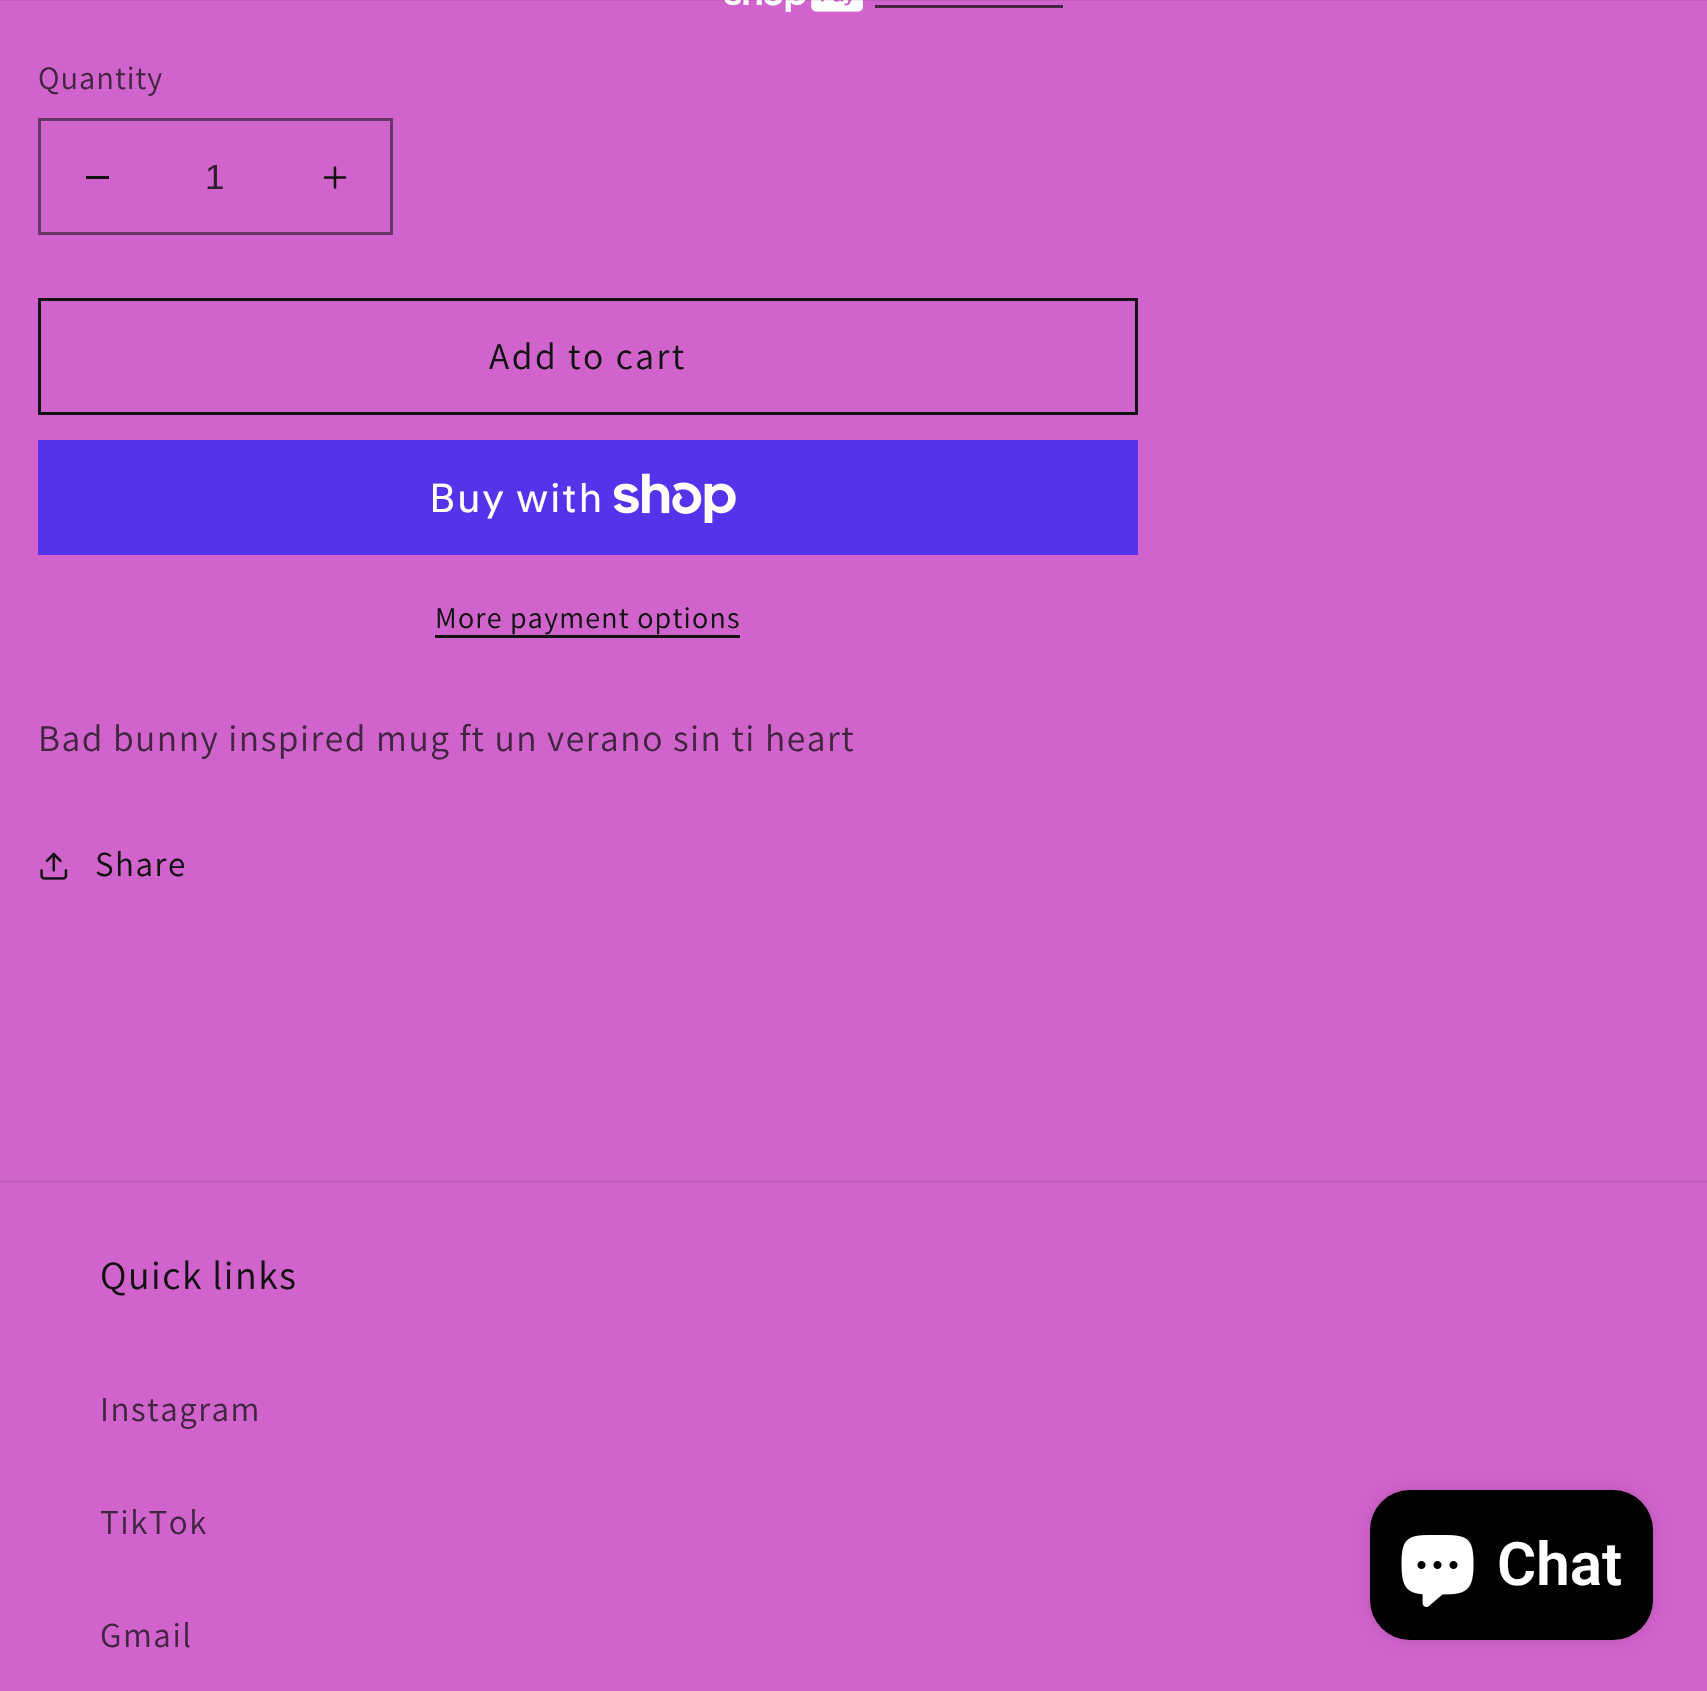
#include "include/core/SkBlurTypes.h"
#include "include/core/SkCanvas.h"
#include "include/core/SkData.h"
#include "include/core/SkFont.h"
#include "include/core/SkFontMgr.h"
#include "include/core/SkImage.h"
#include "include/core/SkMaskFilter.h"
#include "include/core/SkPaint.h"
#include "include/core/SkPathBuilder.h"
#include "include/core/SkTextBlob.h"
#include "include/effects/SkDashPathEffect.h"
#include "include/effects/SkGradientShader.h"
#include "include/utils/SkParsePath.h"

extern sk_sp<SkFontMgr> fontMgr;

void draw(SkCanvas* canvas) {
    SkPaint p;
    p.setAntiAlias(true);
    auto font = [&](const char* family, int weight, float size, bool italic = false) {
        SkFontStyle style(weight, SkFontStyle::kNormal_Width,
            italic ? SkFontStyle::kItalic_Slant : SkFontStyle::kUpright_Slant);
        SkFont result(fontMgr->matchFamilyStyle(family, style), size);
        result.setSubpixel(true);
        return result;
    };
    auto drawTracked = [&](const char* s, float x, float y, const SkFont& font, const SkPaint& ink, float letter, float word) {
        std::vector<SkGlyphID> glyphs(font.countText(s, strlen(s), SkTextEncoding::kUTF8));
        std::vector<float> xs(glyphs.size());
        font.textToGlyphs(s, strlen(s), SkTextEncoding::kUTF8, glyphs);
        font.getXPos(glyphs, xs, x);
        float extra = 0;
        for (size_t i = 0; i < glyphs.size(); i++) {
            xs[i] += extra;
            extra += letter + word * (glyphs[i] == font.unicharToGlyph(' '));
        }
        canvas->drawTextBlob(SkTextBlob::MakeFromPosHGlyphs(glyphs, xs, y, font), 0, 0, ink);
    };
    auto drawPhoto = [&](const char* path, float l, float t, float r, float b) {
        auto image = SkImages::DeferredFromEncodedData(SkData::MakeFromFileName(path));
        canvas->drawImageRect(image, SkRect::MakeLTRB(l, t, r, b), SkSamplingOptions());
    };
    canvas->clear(0xFFD163CC);
    drawPhoto("media/1.png", 724, 0, 863, 12);
    p.setColor(0x14121212);
    canvas->drawRect(SkRect::MakeLTRB(0, 0, 1707, 1), p);
    p.setColor(0xFF422641);
    canvas->drawRect(SkRect::MakeLTRB(875, 5, 1063, 8), p);
    auto font1 = font("Assistant", 400, 32.5f);
    drawTracked("Quantity", 38, 89, font1, p, 1, 0);
    p.setColor(0xFF121212);
    canvas->drawRect(SkRect::MakeLTRB(86, 176, 109, 179), p);
    drawPhoto("media/2.png", 323, 166, 347, 189);
    p.setStyle(SkPaint::kStroke_Style);
    p.setStrokeWidth(3);
    p.setColor(0xFF683666);
    canvas->drawRect(SkRect::MakeLTRB(39.5f, 119.5f, 391.5f, 233.5f), p);
    auto font2 = font("Liberation Sans", 400, 35);
    p.setStyle(SkPaint::kFill_Style);
    p.setColor(0xFF2F1E2E);
    canvas->drawString("1", 205, 189, font2, p);
    p.setStyle(SkPaint::kStroke_Style);
    p.setColor(0xFF121212);
    canvas->drawRect(SkRect::MakeLTRB(39.5f, 299.5f, 1136.5f, 413.5f), p);
    auto font3 = font("Assistant", 400, 37.5f);
    p.setStyle(SkPaint::kFill_Style);
    drawTracked("Add to cart", 489, 369, font3, p, 2.5f, 0);
    p.setColor(0xFF5433EB);
    canvas->drawRect(SkRect::MakeLTRB(38, 440, 1138, 555), p);
    auto font4 = font("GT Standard", 400, 40);
    p.setColor(0xFFFFFFFF);
    drawTracked("Buy with", 429, 512, font4, p, 1.5f, 0);
    drawPhoto("media/3.png", 613, 473, 736, 523);
    auto font5 = font("Assistant", 400, 30);
    p.setColor(0xFF121212);
    drawTracked("More payment options", 435, 628, font5, p, 1.25f, 0);
    canvas->drawRect(SkRect::MakeLTRB(435, 635, 740, 638), p);
    p.setColor(0xFF422641);
    drawTracked("Bad bunny inspired mug ft un verano sin ti heart", 38, 751, font3, p, 1.5f, 0);
    drawPhoto("media/4.png", 40, 852, 68, 880);
    auto font6 = font("Assistant", 400, 35);
    p.setColor(0xFF121212);
    drawTracked("Share", 95, 876, font6, p, 1.5f, 0);
    p.setColor(0xFFC25DBD);
    canvas->drawRect(SkRect::MakeLTRB(0, 1180, 1707, 1183), p);
    auto font7 = font("Assistant", 400, 40);
    p.setColor(0xFF121212);
    drawTracked("Quick links", 100, 1289, font7, p, 1.5f, 0);
    p.setColor(0xFF422641);
    {
        const struct { const char* s; float x, y; } items[] = {
            {"Instagram", 100, 1421},
            {"TikTok", 100, 1534},
            {"Gmail", 100, 1647},
        };
        for (auto [s, x, y] : items) {
            drawTracked(s, x, y, font6, p, 1.5f, 0);
        }
    }
    p.setColor(0x26000000);
    p.setMaskFilter(SkMaskFilter::MakeBlur(kNormal_SkBlurStyle, 6));
    canvas->drawRoundRect(SkRect::MakeLTRB(1370, 1490, 1653, 1640), 40, 40, p);
    p.setMaskFilter(nullptr);
    p.setColor(0xFF000000);
    canvas->drawRoundRect(SkRect::MakeLTRB(1370, 1490, 1653, 1640), 40, 40, p);
    drawPhoto("media/5.png", 1401, 1535, 1474, 1607);
    auto font8 = font("Roboto", 600, 60);
    p.setColor(0xFFFFFFFF);
    canvas->drawString("Chat", 1497, 1585, font8, p);
}
